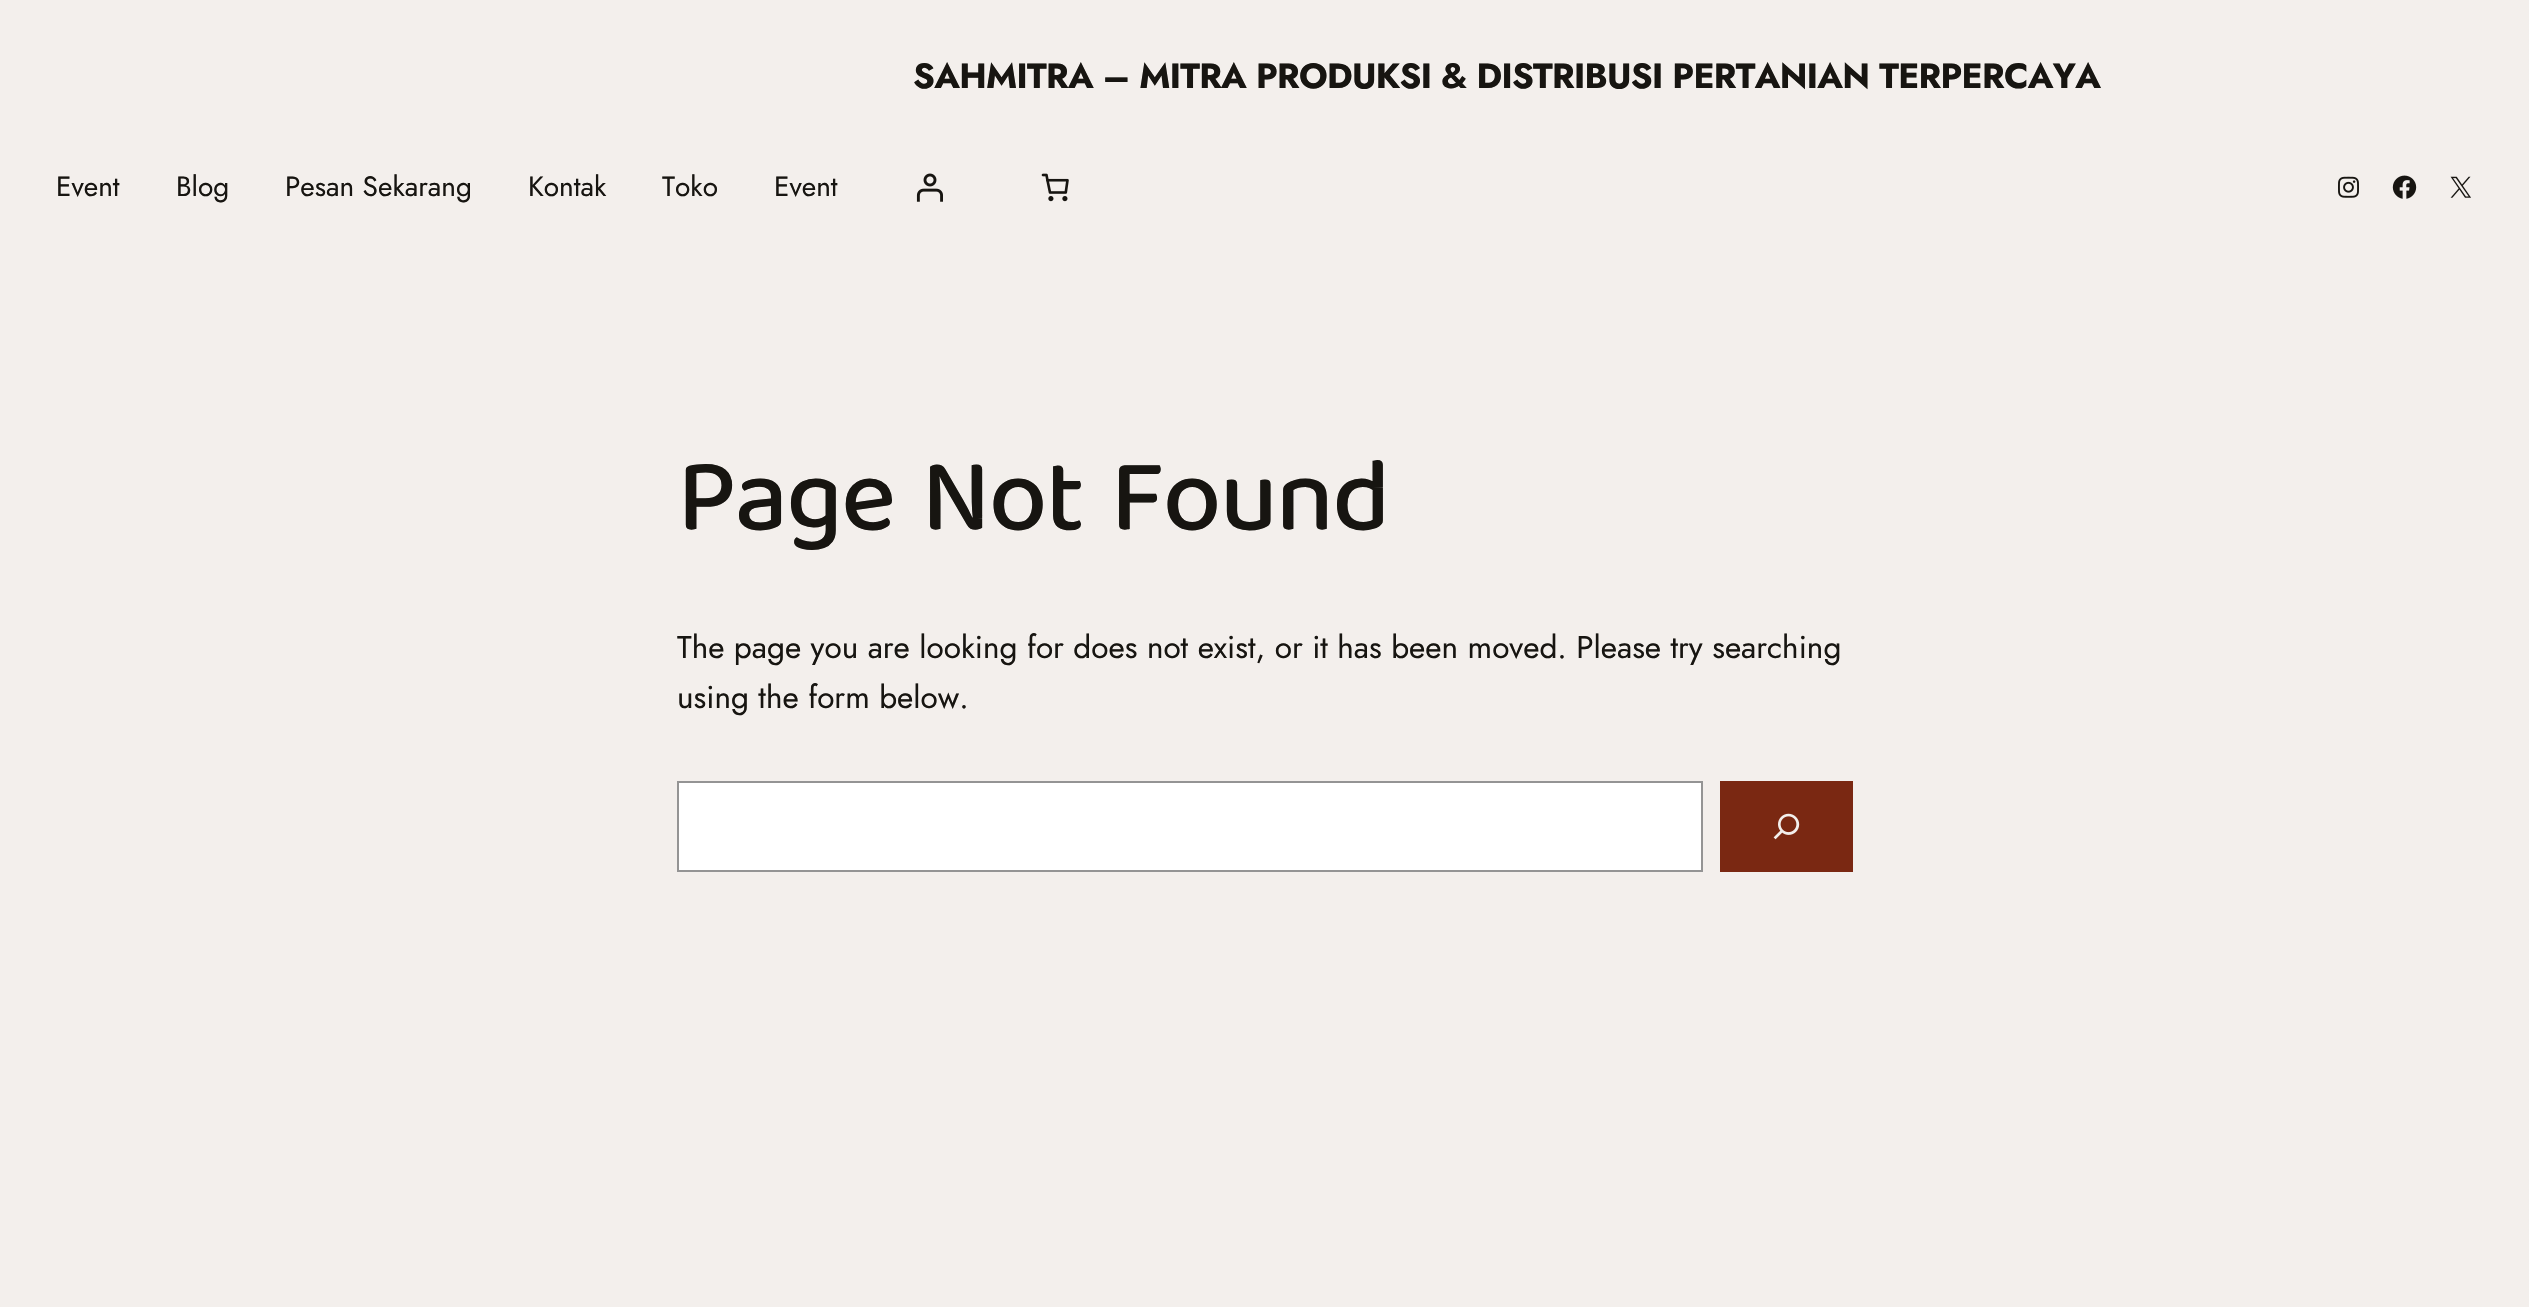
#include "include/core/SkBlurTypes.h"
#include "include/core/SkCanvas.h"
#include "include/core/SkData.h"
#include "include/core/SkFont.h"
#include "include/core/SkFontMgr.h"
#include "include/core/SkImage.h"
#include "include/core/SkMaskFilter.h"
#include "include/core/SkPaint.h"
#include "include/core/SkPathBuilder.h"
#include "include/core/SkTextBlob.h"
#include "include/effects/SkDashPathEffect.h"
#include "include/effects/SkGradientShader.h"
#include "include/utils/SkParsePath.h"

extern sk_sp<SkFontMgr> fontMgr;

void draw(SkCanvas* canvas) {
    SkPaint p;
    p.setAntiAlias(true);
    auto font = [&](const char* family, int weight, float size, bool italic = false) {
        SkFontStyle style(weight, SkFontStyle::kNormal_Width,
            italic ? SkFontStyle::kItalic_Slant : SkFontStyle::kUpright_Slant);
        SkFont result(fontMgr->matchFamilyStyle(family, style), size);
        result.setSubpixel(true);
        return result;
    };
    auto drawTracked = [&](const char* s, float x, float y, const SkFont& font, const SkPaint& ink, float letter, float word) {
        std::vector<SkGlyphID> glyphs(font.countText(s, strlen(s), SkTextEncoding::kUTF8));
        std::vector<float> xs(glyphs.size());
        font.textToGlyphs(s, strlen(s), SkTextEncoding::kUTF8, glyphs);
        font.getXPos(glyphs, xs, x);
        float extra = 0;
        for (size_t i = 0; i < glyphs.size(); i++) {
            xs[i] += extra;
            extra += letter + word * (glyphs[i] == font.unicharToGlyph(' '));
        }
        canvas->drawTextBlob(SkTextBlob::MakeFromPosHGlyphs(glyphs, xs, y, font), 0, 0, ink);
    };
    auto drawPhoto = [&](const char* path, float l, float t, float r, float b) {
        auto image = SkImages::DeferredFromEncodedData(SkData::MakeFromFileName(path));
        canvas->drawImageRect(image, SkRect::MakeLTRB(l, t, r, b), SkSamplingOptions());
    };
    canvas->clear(0xFFF3EFEC);
    auto font1 = font("Jost", 700, 35);
    p.setColor(0xFF171511);
    drawTracked("SAHMITRA – MITRA PRODUKSI & DISTRIBUSI PERTANIAN TERPERCAYA", 913, 88, font1, p, -0.7f, 0);
    auto font2 = font("Jost", 400, 28);
    {
        const struct { const char* s; float x, y; } items[] = {
            {"Event", 56, 196},
            {"Blog", 176, 196},
            {"Pesan Sekarang", 285, 196},
            {"Kontak", 528, 196},
            {"Toko", 662, 196},
            {"Event", 774, 196},
        };
        for (auto [s, x, y] : items) {
            canvas->drawString(s, x, y, font2, p);
        }
    }
    drawPhoto("media/1.png", 916, 173, 943, 202);
    drawPhoto("media/2.png", 1041, 173, 1069, 202);
    drawPhoto("media/3.png", 2338, 176, 2359, 198);
    drawPhoto("media/4.png", 2392, 175, 2417, 199);
    drawPhoto("media/5.png", 2450, 176, 2471, 198);
    auto font3 = font("Baloo Tamma 2", 500, 105);
    drawTracked("Page Not Found", 677, 529, font3, p, -2.1f, 0);
    auto font4 = font("Jost", 400, 31.5f);
    canvas->drawString("The page you are looking for does not exist, or it has been moved. Please try searching", 677, 658, font4, p);
    canvas->drawString("using the form below.", 677, 708, font4, p);
    p.setColor(0xFFFFFFFF);
    canvas->drawRect(SkRect::MakeLTRB(678, 782, 1702, 871), p);
    p.setStyle(SkPaint::kStroke_Style);
    p.setStrokeWidth(2);
    p.setColor(0xFF949494);
    canvas->drawRect(SkRect::MakeLTRB(678, 782, 1702, 871), p);
    p.setStyle(SkPaint::kFill_Style);
    p.setColor(0xFF7A2812);
    canvas->drawRect(SkRect::MakeLTRB(1720, 781, 1853, 872), p);
    drawPhoto("media/6.png", 1773, 813, 1800, 840);
}
